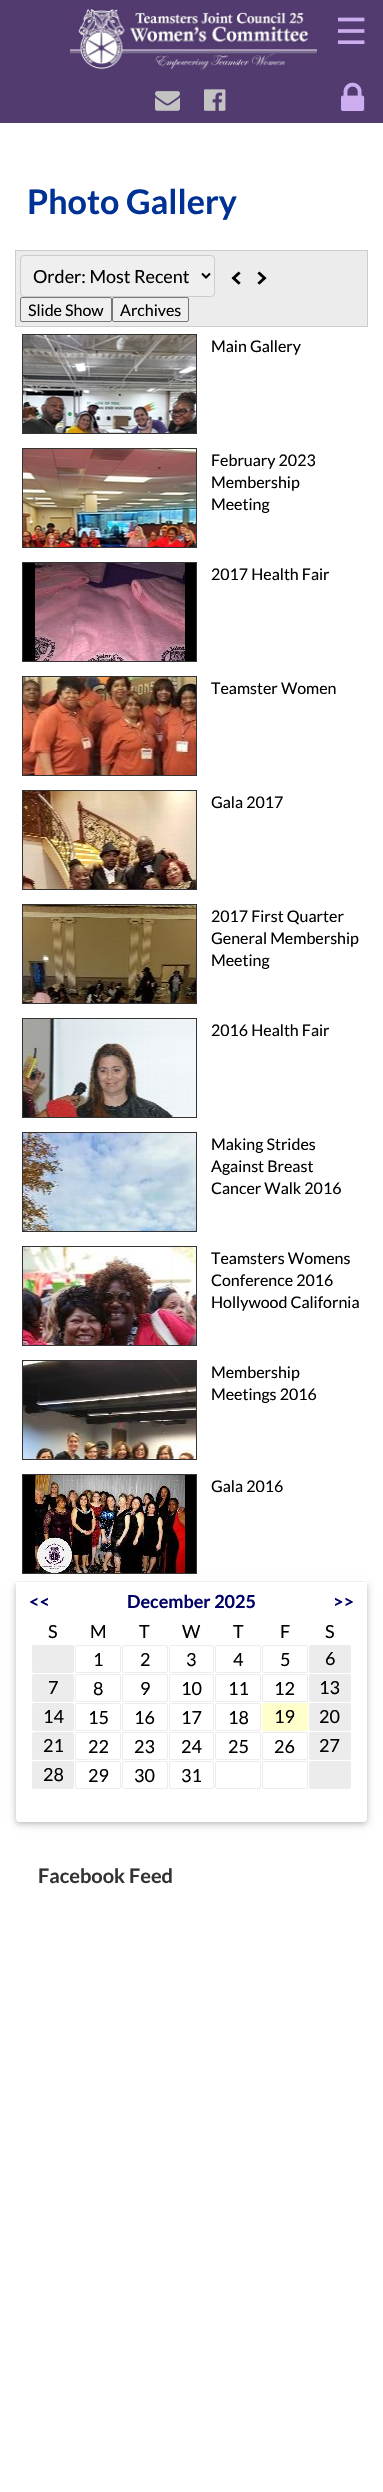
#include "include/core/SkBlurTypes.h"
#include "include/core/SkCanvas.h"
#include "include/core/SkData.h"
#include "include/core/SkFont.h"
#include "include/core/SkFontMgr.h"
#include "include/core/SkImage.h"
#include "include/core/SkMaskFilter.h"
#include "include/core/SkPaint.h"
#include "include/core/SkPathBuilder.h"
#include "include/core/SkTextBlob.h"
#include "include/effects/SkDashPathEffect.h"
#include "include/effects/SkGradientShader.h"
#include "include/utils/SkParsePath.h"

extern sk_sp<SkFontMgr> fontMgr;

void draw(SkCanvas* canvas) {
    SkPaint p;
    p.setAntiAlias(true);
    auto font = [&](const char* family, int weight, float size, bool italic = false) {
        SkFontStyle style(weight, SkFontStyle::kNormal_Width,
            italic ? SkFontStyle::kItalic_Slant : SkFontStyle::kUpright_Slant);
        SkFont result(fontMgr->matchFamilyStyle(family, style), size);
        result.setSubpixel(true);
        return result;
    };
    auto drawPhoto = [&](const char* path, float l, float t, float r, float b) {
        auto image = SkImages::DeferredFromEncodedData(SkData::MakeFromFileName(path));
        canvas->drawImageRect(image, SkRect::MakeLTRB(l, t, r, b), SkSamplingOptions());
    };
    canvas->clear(0xFFFFFFFF);
    p.setColor(0xFF523B6F);
    canvas->drawRect(SkRect::MakeLTRB(0, 0, 383, 123), p);
    drawPhoto("media/1.png", 70, 8, 317, 70);
    drawPhoto("media/2.png", 155, 91, 180, 111);
    drawPhoto("media/3.png", 204, 89, 226, 111);
    auto font1 = font("DejaVu Sans", 400, 36);
    p.setColor(0xFFCBADF0);
    canvas->drawString("☰", 335, 44, font1, p);
    drawPhoto("media/4.png", 341, 82, 365, 111);
    auto font2 = font("Lato", 700, 34);
    p.setColor(0xFF003194);
    canvas->drawString("Photo Gallery", 27, 214, font2, p);
    canvas->save();
    canvas->clipPath(SkPathBuilder(SkPathFillType::kEvenOdd).moveTo(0, 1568).lineTo(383, 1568).lineTo(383, 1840).lineTo(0, 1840).close().moveTo(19, 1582).lineTo(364, 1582).cubicTo(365.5f, 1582, 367, 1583.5f, 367, 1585).lineTo(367, 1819).cubicTo(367, 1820.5f, 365.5f, 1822, 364, 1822).lineTo(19, 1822).cubicTo(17.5f, 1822, 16, 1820.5f, 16, 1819).lineTo(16, 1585).cubicTo(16, 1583.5f, 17.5f, 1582, 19, 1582).close().detach(), true);
    p.setColor(0x1F000000);
    p.setMaskFilter(SkMaskFilter::MakeBlur(kNormal_SkBlurStyle, 5));
    canvas->drawRoundRect(SkRect::MakeLTRB(16, 1584, 367, 1824), 3, 3, p);
    p.setMaskFilter(nullptr);
    canvas->restore();
    canvas->save();
    canvas->clipPath(SkPathBuilder(SkPathFillType::kEvenOdd).moveTo(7, 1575).lineTo(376, 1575).lineTo(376, 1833).lineTo(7, 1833).close().moveTo(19, 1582).lineTo(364, 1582).cubicTo(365.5f, 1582, 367, 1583.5f, 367, 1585).lineTo(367, 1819).cubicTo(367, 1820.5f, 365.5f, 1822, 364, 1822).lineTo(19, 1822).cubicTo(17.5f, 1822, 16, 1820.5f, 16, 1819).lineTo(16, 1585).cubicTo(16, 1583.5f, 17.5f, 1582, 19, 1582).close().detach(), true);
    p.setColor(0x29000000);
    p.setMaskFilter(SkMaskFilter::MakeBlur(kNormal_SkBlurStyle, 2.5f));
    canvas->drawRoundRect(SkRect::MakeLTRB(16, 1584, 367, 1824), 3, 3, p);
    p.setMaskFilter(nullptr);
    canvas->restore();
    p.setColor(0xFFFFFFFF);
    canvas->drawRect(SkRect::MakeLTRB(15, 1577, 368, 1581), p);
    p.setColor(0xFFECECEC);
    canvas->drawRect(SkRect::MakeLTRB(15.5f, 250.5f, 367.5f, 326.5f), p);
    p.setStyle(SkPaint::kStroke_Style);
    p.setStrokeWidth(1);
    p.setColor(0xFFCCCCCC);
    canvas->drawRect(SkRect::MakeLTRB(15.5f, 250.5f, 367.5f, 326.5f), p);
    p.setStyle(SkPaint::kFill_Style);
    p.setColor(0xFFEFEFEF);
    canvas->drawRoundRect(SkRect::MakeLTRB(20.5f, 255.5f, 214.5f, 296.5f), 3.5f, 3.5f, p);
    p.setStyle(SkPaint::kStroke_Style);
    p.setColor(0xFFCCCCCC);
    canvas->drawRoundRect(SkRect::MakeLTRB(20.5f, 255.5f, 214.5f, 296.5f), 3.5f, 3.5f, p);
    p.setStrokeWidth(2);
    p.setColor(0xFF000000);
    canvas->drawPath(SkPathBuilder().moveTo(202, 273.5f).lineTo(206, 277.5f).lineTo(210, 273.5f).detach(), p);
    auto font3 = font("Lato", 400, 18);
    p.setStyle(SkPaint::kFill_Style);
    canvas->drawString("Order: Most Recent", 33, 283, font3, p);
    drawPhoto("media/5.png", 231, 271, 241, 285);
    drawPhoto("media/6.png", 257, 271, 267, 285);
    p.setColor(0xFFEFEFEF);
    canvas->drawRoundRect(SkRect::MakeLTRB(20.5f, 297.5f, 111.5f, 321.5f), 1.5f, 1.5f, p);
    p.setStyle(SkPaint::kStroke_Style);
    p.setStrokeWidth(1);
    p.setColor(0xFF767676);
    canvas->drawRoundRect(SkRect::MakeLTRB(20.5f, 297.5f, 111.5f, 321.5f), 1.5f, 1.5f, p);
    auto font4 = font("Lato", 400, 16);
    p.setStyle(SkPaint::kFill_Style);
    p.setColor(0xFF000000);
    canvas->drawString("Slide Show", 28, 316, font4, p);
    p.setColor(0xFFEFEFEF);
    canvas->drawRoundRect(SkRect::MakeLTRB(112.5f, 297.5f, 188.5f, 321.5f), 1.5f, 1.5f, p);
    p.setStyle(SkPaint::kStroke_Style);
    p.setColor(0xFF767676);
    canvas->drawRoundRect(SkRect::MakeLTRB(112.5f, 297.5f, 188.5f, 321.5f), 1.5f, 1.5f, p);
    p.setStyle(SkPaint::kFill_Style);
    p.setColor(0xFF000000);
    canvas->drawString("Archives", 120, 316, font4, p);
    drawPhoto("media/7.png", 23, 335, 196, 433);
    p.setStyle(SkPaint::kStroke_Style);
    p.setColor(0xFF333333);
    canvas->drawRect(SkRect::MakeLTRB(22.5f, 334.5f, 196.5f, 433.5f), p);
    p.setStyle(SkPaint::kFill_Style);
    p.setColor(0xFF000000);
    canvas->drawString("Main Gallery", 211, 352, font4, p);
    drawPhoto("media/8.png", 23, 449, 196, 547);
    p.setStyle(SkPaint::kStroke_Style);
    p.setColor(0xFF333333);
    canvas->drawRect(SkRect::MakeLTRB(22.5f, 448.5f, 196.5f, 547.5f), p);
    p.setStyle(SkPaint::kFill_Style);
    p.setColor(0xFF000000);
    {
        const struct { const char* s; float x, y; } items[] = {
            {"February 2023", 211, 466},
            {"Membership", 211, 488},
            {"Meeting", 211, 510},
        };
        for (auto [s, x, y] : items) {
            canvas->drawString(s, x, y, font4, p);
        }
    }
    canvas->drawRect(SkRect::MakeLTRB(23, 563, 196, 661), p);
    drawPhoto("media/9.png", 35, 563, 185, 661);
    p.setStyle(SkPaint::kStroke_Style);
    p.setColor(0xFF333333);
    canvas->drawRect(SkRect::MakeLTRB(22.5f, 562.5f, 196.5f, 661.5f), p);
    p.setStyle(SkPaint::kFill_Style);
    p.setColor(0xFF000000);
    canvas->drawString("2017 Health Fair", 211, 580, font4, p);
    drawPhoto("media/10.png", 23, 677, 196, 775);
    p.setStyle(SkPaint::kStroke_Style);
    p.setColor(0xFF333333);
    canvas->drawRect(SkRect::MakeLTRB(22.5f, 676.5f, 196.5f, 775.5f), p);
    p.setStyle(SkPaint::kFill_Style);
    p.setColor(0xFF000000);
    canvas->drawString("Teamster Women", 211, 694, font4, p);
    drawPhoto("media/11.png", 23, 791, 196, 889);
    p.setStyle(SkPaint::kStroke_Style);
    p.setColor(0xFF333333);
    canvas->drawRect(SkRect::MakeLTRB(22.5f, 790.5f, 196.5f, 889.5f), p);
    p.setStyle(SkPaint::kFill_Style);
    p.setColor(0xFF000000);
    canvas->drawString("Gala 2017", 211, 808, font4, p);
    drawPhoto("media/12.png", 23, 905, 196, 1003);
    p.setStyle(SkPaint::kStroke_Style);
    p.setColor(0xFF333333);
    canvas->drawRect(SkRect::MakeLTRB(22.5f, 904.5f, 196.5f, 1003.5f), p);
    p.setStyle(SkPaint::kFill_Style);
    p.setColor(0xFF000000);
    {
        const struct { const char* s; float x, y; } items[] = {
            {"2017 First Quarter", 211, 922},
            {"General Membership", 211, 944},
            {"Meeting", 211, 966},
        };
        for (auto [s, x, y] : items) {
            canvas->drawString(s, x, y, font4, p);
        }
    }
    drawPhoto("media/13.png", 23, 1019, 196, 1117);
    p.setStyle(SkPaint::kStroke_Style);
    p.setColor(0xFF333333);
    canvas->drawRect(SkRect::MakeLTRB(22.5f, 1018.5f, 196.5f, 1117.5f), p);
    p.setStyle(SkPaint::kFill_Style);
    p.setColor(0xFF000000);
    canvas->drawString("2016 Health Fair", 211, 1036, font4, p);
    drawPhoto("media/14.png", 23, 1133, 196, 1231);
    p.setStyle(SkPaint::kStroke_Style);
    p.setColor(0xFF333333);
    canvas->drawRect(SkRect::MakeLTRB(22.5f, 1132.5f, 196.5f, 1231.5f), p);
    p.setStyle(SkPaint::kFill_Style);
    p.setColor(0xFF000000);
    {
        const struct { const char* s; float x, y; } items[] = {
            {"Making Strides", 211, 1150},
            {"Against Breast", 211, 1172},
            {"Cancer Walk 2016", 211, 1194},
        };
        for (auto [s, x, y] : items) {
            canvas->drawString(s, x, y, font4, p);
        }
    }
    drawPhoto("media/15.png", 23, 1247, 196, 1345);
    p.setStyle(SkPaint::kStroke_Style);
    p.setColor(0xFF333333);
    canvas->drawRect(SkRect::MakeLTRB(22.5f, 1246.5f, 196.5f, 1345.5f), p);
    p.setStyle(SkPaint::kFill_Style);
    p.setColor(0xFF000000);
    {
        const struct { const char* s; float x, y; } items[] = {
            {"Teamsters Womens", 211, 1264},
            {"Conference 2016", 211, 1286},
            {"Hollywood California", 211, 1308},
        };
        for (auto [s, x, y] : items) {
            canvas->drawString(s, x, y, font4, p);
        }
    }
    drawPhoto("media/16.png", 23, 1361, 196, 1459);
    p.setStyle(SkPaint::kStroke_Style);
    p.setColor(0xFF333333);
    canvas->drawRect(SkRect::MakeLTRB(22.5f, 1360.5f, 196.5f, 1459.5f), p);
    p.setStyle(SkPaint::kFill_Style);
    p.setColor(0xFF000000);
    canvas->drawString("Membership", 211, 1378, font4, p);
    canvas->drawString("Meetings 2016", 211, 1400, font4, p);
    canvas->drawRect(SkRect::MakeLTRB(23, 1475, 196, 1573), p);
    drawPhoto("media/17.png", 35, 1475, 185, 1573);
    p.setStyle(SkPaint::kStroke_Style);
    p.setColor(0xFF333333);
    canvas->drawRect(SkRect::MakeLTRB(22.5f, 1474.5f, 196.5f, 1573.5f), p);
    p.setStyle(SkPaint::kFill_Style);
    p.setColor(0xFF000000);
    canvas->drawString("Gala 2016", 211, 1492, font4, p);
    p.setColor(0xFFFFFFFF);
    canvas->drawRect(SkRect::MakeLTRB(16, 1582, 367, 1584), p);
    auto font5 = font("Lato", 700, 18);
    p.setColor(0xFF000066);
    {
        const struct { const char* s; float x, y; } items[] = {
            {"<<", 29, 1608},
            {"December 2025", 127, 1608},
            {">>", 333, 1608},
        };
        for (auto [s, x, y] : items) {
            canvas->drawString(s, x, y, font5, p);
        }
    }
    p.setColor(0xFF000000);
    {
        const struct { const char* s; float x, y; } items[] = {
            {"S", 48, 1638},
            {"M", 90, 1638},
            {"T", 139, 1638},
            {"W", 182, 1638},
            {"T", 233, 1638},
            {"F", 280, 1638},
            {"S", 325, 1638},
        };
        for (auto [s, x, y] : items) {
            canvas->drawString(s, x, y, font3, p);
        }
    }
    p.setColor(0xFFECECEC);
    canvas->drawRoundRect(SkRect::MakeLTRB(32, 1645, 74, 1673), 2, 2, p);
    p.setStyle(SkPaint::kStroke_Style);
    canvas->drawRoundRect(SkRect::MakeLTRB(75.5f, 1645.5f, 120.5f, 1672.5f), 1.5f, 1.5f, p);
    p.setStyle(SkPaint::kFill_Style);
    p.setColor(0xFF000000);
    canvas->drawString("1", 93, 1666, font3, p);
    p.setStyle(SkPaint::kStroke_Style);
    p.setColor(0xFFECECEC);
    canvas->drawRoundRect(SkRect::MakeLTRB(122.5f, 1645.5f, 167.5f, 1672.5f), 1.5f, 1.5f, p);
    p.setStyle(SkPaint::kFill_Style);
    p.setColor(0xFF000000);
    canvas->drawString("2", 140, 1666, font3, p);
    p.setStyle(SkPaint::kStroke_Style);
    p.setColor(0xFFECECEC);
    canvas->drawRoundRect(SkRect::MakeLTRB(169.5f, 1645.5f, 213.5f, 1672.5f), 1.5f, 1.5f, p);
    p.setStyle(SkPaint::kFill_Style);
    p.setColor(0xFF000000);
    canvas->drawString("3", 186, 1666, font3, p);
    p.setStyle(SkPaint::kStroke_Style);
    p.setColor(0xFFECECEC);
    canvas->drawRoundRect(SkRect::MakeLTRB(215.5f, 1645.5f, 260.5f, 1672.5f), 1.5f, 1.5f, p);
    p.setStyle(SkPaint::kFill_Style);
    p.setColor(0xFF000000);
    canvas->drawString("4", 233, 1666, font3, p);
    p.setStyle(SkPaint::kStroke_Style);
    p.setColor(0xFFECECEC);
    canvas->drawRoundRect(SkRect::MakeLTRB(262.5f, 1645.5f, 307.5f, 1672.5f), 1.5f, 1.5f, p);
    p.setStyle(SkPaint::kFill_Style);
    p.setColor(0xFF000000);
    canvas->drawString("5", 280, 1666, font3, p);
    p.setColor(0xFFECECEC);
    canvas->drawRoundRect(SkRect::MakeLTRB(309, 1645, 351, 1673), 2, 2, p);
    p.setColor(0xFF000000);
    canvas->drawString("6", 325, 1665, font3, p);
    p.setColor(0xFFECECEC);
    canvas->drawRoundRect(SkRect::MakeLTRB(32, 1674, 74, 1702), 2, 2, p);
    p.setColor(0xFF000000);
    canvas->drawString("7", 48, 1694, font3, p);
    p.setStyle(SkPaint::kStroke_Style);
    p.setColor(0xFFECECEC);
    canvas->drawRoundRect(SkRect::MakeLTRB(75.5f, 1674.5f, 120.5f, 1701.5f), 1.5f, 1.5f, p);
    p.setStyle(SkPaint::kFill_Style);
    p.setColor(0xFF000000);
    canvas->drawString("8", 93, 1695, font3, p);
    p.setStyle(SkPaint::kStroke_Style);
    p.setColor(0xFFECECEC);
    canvas->drawRoundRect(SkRect::MakeLTRB(122.5f, 1674.5f, 167.5f, 1701.5f), 1.5f, 1.5f, p);
    p.setStyle(SkPaint::kFill_Style);
    p.setColor(0xFF000000);
    canvas->drawString("9", 140, 1695, font3, p);
    p.setStyle(SkPaint::kStroke_Style);
    p.setColor(0xFFECECEC);
    canvas->drawRoundRect(SkRect::MakeLTRB(169.5f, 1674.5f, 213.5f, 1701.5f), 1.5f, 1.5f, p);
    p.setStyle(SkPaint::kFill_Style);
    p.setColor(0xFF000000);
    canvas->drawString("10", 181, 1695, font3, p);
    p.setStyle(SkPaint::kStroke_Style);
    p.setColor(0xFFECECEC);
    canvas->drawRoundRect(SkRect::MakeLTRB(215.5f, 1674.5f, 260.5f, 1701.5f), 1.5f, 1.5f, p);
    p.setStyle(SkPaint::kFill_Style);
    p.setColor(0xFF000000);
    canvas->drawString("11", 228, 1695, font3, p);
    p.setStyle(SkPaint::kStroke_Style);
    p.setColor(0xFFECECEC);
    canvas->drawRoundRect(SkRect::MakeLTRB(262.5f, 1674.5f, 307.5f, 1701.5f), 1.5f, 1.5f, p);
    p.setStyle(SkPaint::kFill_Style);
    p.setColor(0xFF000000);
    canvas->drawString("12", 274, 1695, font3, p);
    p.setColor(0xFFECECEC);
    canvas->drawRoundRect(SkRect::MakeLTRB(309, 1674, 351, 1702), 2, 2, p);
    p.setColor(0xFF000000);
    canvas->drawString("13", 319, 1694, font3, p);
    p.setColor(0xFFECECEC);
    canvas->drawRoundRect(SkRect::MakeLTRB(32, 1703, 74, 1731), 2, 2, p);
    p.setColor(0xFF000000);
    canvas->drawString("14", 43, 1723, font3, p);
    p.setStyle(SkPaint::kStroke_Style);
    p.setColor(0xFFECECEC);
    canvas->drawRoundRect(SkRect::MakeLTRB(75.5f, 1703.5f, 120.5f, 1730.5f), 1.5f, 1.5f, p);
    p.setStyle(SkPaint::kFill_Style);
    p.setColor(0xFF000000);
    canvas->drawString("15", 88, 1724, font3, p);
    p.setStyle(SkPaint::kStroke_Style);
    p.setColor(0xFFECECEC);
    canvas->drawRoundRect(SkRect::MakeLTRB(122.5f, 1703.5f, 167.5f, 1730.5f), 1.5f, 1.5f, p);
    p.setStyle(SkPaint::kFill_Style);
    p.setColor(0xFF000000);
    canvas->drawString("16", 134, 1724, font3, p);
    p.setStyle(SkPaint::kStroke_Style);
    p.setColor(0xFFECECEC);
    canvas->drawRoundRect(SkRect::MakeLTRB(169.5f, 1703.5f, 213.5f, 1730.5f), 1.5f, 1.5f, p);
    p.setStyle(SkPaint::kFill_Style);
    p.setColor(0xFF000000);
    canvas->drawString("17", 181, 1724, font3, p);
    p.setStyle(SkPaint::kStroke_Style);
    p.setColor(0xFFECECEC);
    canvas->drawRoundRect(SkRect::MakeLTRB(215.5f, 1703.5f, 260.5f, 1730.5f), 1.5f, 1.5f, p);
    p.setStyle(SkPaint::kFill_Style);
    p.setColor(0xFF000000);
    canvas->drawString("18", 228, 1724, font3, p);
    p.setColor(0xFFFFFFCC);
    canvas->drawRoundRect(SkRect::MakeLTRB(262, 1703, 308, 1731), 2, 2, p);
    p.setColor(0xFF000000);
    canvas->drawString("19", 274, 1723, font3, p);
    p.setColor(0xFFECECEC);
    canvas->drawRoundRect(SkRect::MakeLTRB(309, 1703, 351, 1731), 2, 2, p);
    p.setColor(0xFF000000);
    canvas->drawString("20", 319, 1723, font3, p);
    p.setColor(0xFFECECEC);
    canvas->drawRoundRect(SkRect::MakeLTRB(32, 1732, 74, 1760), 2, 2, p);
    p.setColor(0xFF000000);
    canvas->drawString("21", 43, 1752, font3, p);
    p.setStyle(SkPaint::kStroke_Style);
    p.setColor(0xFFECECEC);
    canvas->drawRoundRect(SkRect::MakeLTRB(75.5f, 1732.5f, 120.5f, 1759.5f), 1.5f, 1.5f, p);
    p.setStyle(SkPaint::kFill_Style);
    p.setColor(0xFF000000);
    canvas->drawString("22", 88, 1753, font3, p);
    p.setStyle(SkPaint::kStroke_Style);
    p.setColor(0xFFECECEC);
    canvas->drawRoundRect(SkRect::MakeLTRB(122.5f, 1732.5f, 167.5f, 1759.5f), 1.5f, 1.5f, p);
    p.setStyle(SkPaint::kFill_Style);
    p.setColor(0xFF000000);
    canvas->drawString("23", 134, 1753, font3, p);
    p.setStyle(SkPaint::kStroke_Style);
    p.setColor(0xFFECECEC);
    canvas->drawRoundRect(SkRect::MakeLTRB(169.5f, 1732.5f, 213.5f, 1759.5f), 1.5f, 1.5f, p);
    p.setStyle(SkPaint::kFill_Style);
    p.setColor(0xFF000000);
    canvas->drawString("24", 181, 1753, font3, p);
    p.setStyle(SkPaint::kStroke_Style);
    p.setColor(0xFFECECEC);
    canvas->drawRoundRect(SkRect::MakeLTRB(215.5f, 1732.5f, 260.5f, 1759.5f), 1.5f, 1.5f, p);
    p.setStyle(SkPaint::kFill_Style);
    p.setColor(0xFF000000);
    canvas->drawString("25", 228, 1753, font3, p);
    p.setStyle(SkPaint::kStroke_Style);
    p.setColor(0xFFECECEC);
    canvas->drawRoundRect(SkRect::MakeLTRB(262.5f, 1732.5f, 307.5f, 1759.5f), 1.5f, 1.5f, p);
    p.setStyle(SkPaint::kFill_Style);
    p.setColor(0xFF000000);
    canvas->drawString("26", 274, 1753, font3, p);
    p.setColor(0xFFECECEC);
    canvas->drawRoundRect(SkRect::MakeLTRB(309, 1732, 351, 1760), 2, 2, p);
    p.setColor(0xFF000000);
    canvas->drawString("27", 319, 1752, font3, p);
    p.setColor(0xFFECECEC);
    canvas->drawRoundRect(SkRect::MakeLTRB(32, 1761, 74, 1789), 2, 2, p);
    p.setColor(0xFF000000);
    canvas->drawString("28", 43, 1781, font3, p);
    p.setStyle(SkPaint::kStroke_Style);
    p.setColor(0xFFECECEC);
    canvas->drawRoundRect(SkRect::MakeLTRB(75.5f, 1761.5f, 120.5f, 1788.5f), 1.5f, 1.5f, p);
    p.setStyle(SkPaint::kFill_Style);
    p.setColor(0xFF000000);
    canvas->drawString("29", 88, 1782, font3, p);
    p.setStyle(SkPaint::kStroke_Style);
    p.setColor(0xFFECECEC);
    canvas->drawRoundRect(SkRect::MakeLTRB(122.5f, 1761.5f, 167.5f, 1788.5f), 1.5f, 1.5f, p);
    p.setStyle(SkPaint::kFill_Style);
    p.setColor(0xFF000000);
    canvas->drawString("30", 134, 1782, font3, p);
    p.setStyle(SkPaint::kStroke_Style);
    p.setColor(0xFFECECEC);
    canvas->drawRoundRect(SkRect::MakeLTRB(169.5f, 1761.5f, 213.5f, 1788.5f), 1.5f, 1.5f, p);
    p.setStyle(SkPaint::kFill_Style);
    p.setColor(0xFF000000);
    canvas->drawString("31", 181, 1782, font3, p);
    p.setStyle(SkPaint::kStroke_Style);
    p.setColor(0xFFECECEC);
    canvas->drawRoundRect(SkRect::MakeLTRB(215.5f, 1761.5f, 260.5f, 1788.5f), 1.5f, 1.5f, p);
    canvas->drawRoundRect(SkRect::MakeLTRB(262.5f, 1761.5f, 307.5f, 1788.5f), 1.5f, 1.5f, p);
    p.setStyle(SkPaint::kFill_Style);
    canvas->drawRoundRect(SkRect::MakeLTRB(309, 1761, 351, 1789), 2, 2, p);
    auto font6 = font("Lato", 700, 20);
    p.setColor(0xFF333333);
    canvas->drawString("Facebook Feed", 38, 1883, font6, p);
}
